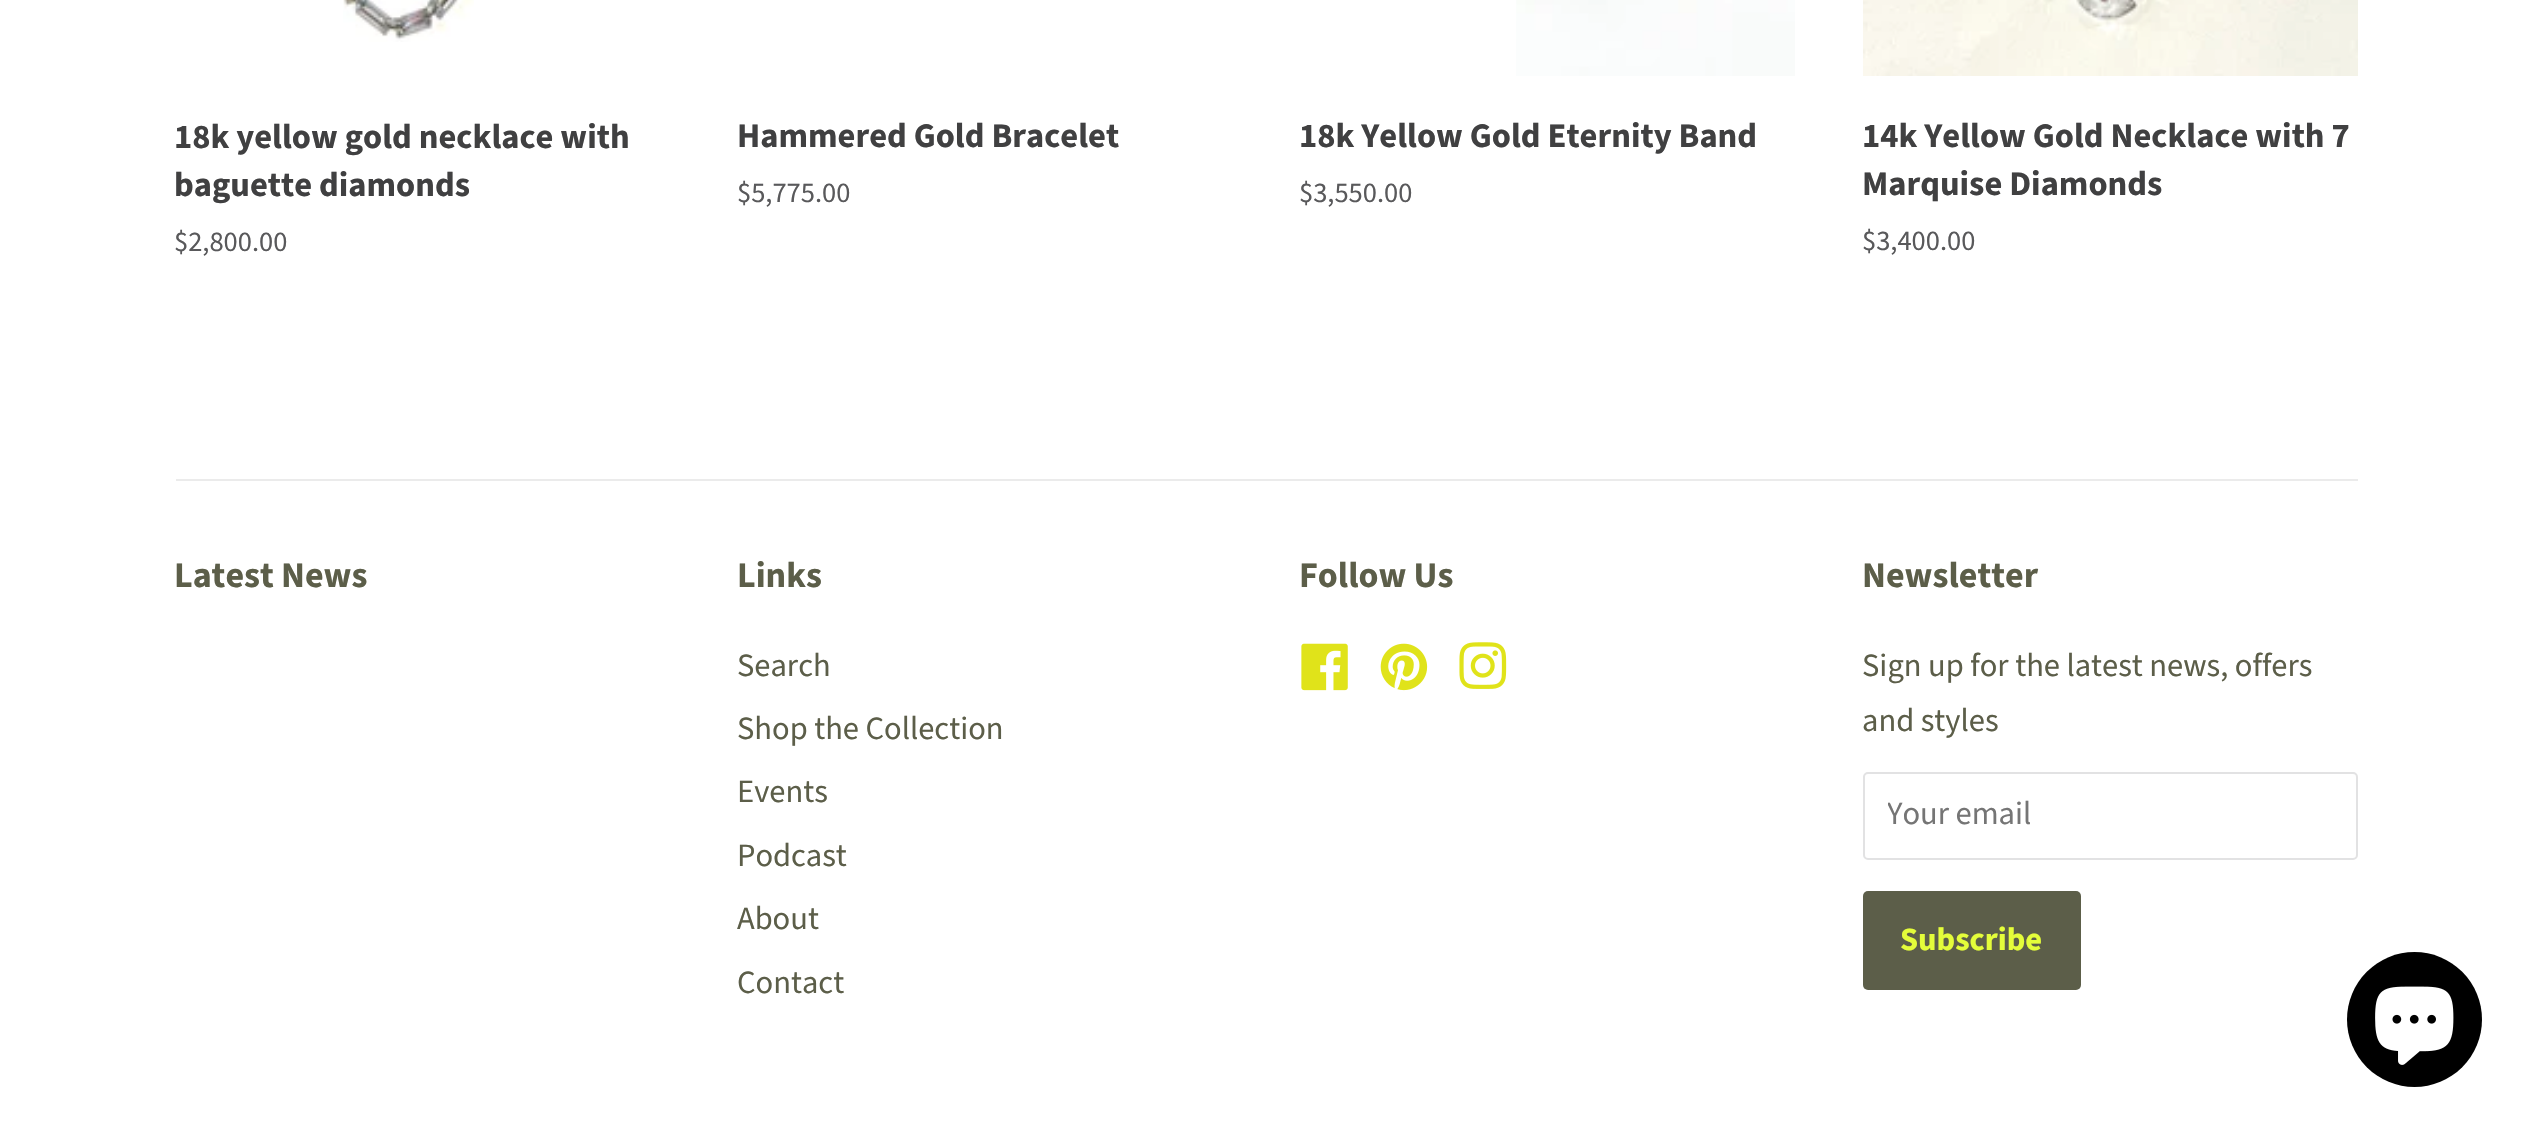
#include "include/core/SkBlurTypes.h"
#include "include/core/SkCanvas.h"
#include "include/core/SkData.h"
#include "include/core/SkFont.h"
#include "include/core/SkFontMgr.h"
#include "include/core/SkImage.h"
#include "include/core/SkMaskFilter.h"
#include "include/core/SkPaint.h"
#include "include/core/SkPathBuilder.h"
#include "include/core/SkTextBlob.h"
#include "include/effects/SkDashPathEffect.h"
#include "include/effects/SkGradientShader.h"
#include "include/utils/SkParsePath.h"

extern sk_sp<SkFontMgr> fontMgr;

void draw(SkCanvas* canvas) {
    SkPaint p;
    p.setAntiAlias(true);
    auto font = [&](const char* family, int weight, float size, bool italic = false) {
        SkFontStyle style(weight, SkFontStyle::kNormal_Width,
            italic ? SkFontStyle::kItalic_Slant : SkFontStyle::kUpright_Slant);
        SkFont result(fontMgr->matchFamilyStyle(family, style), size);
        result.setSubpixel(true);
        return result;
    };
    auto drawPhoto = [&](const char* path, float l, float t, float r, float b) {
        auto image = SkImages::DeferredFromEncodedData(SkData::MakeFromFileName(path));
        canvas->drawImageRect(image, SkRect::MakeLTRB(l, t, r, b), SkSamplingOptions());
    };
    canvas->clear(0xFFFFFFFF);
    drawPhoto("media/1.png", 343, 0, 474, 42);
    auto font1 = font("Source Sans Pro", 700, 34.5f);
    p.setColor(0xFF404041);
    canvas->drawString("18k yellow gold necklace with", 174, 148, font1, p);
    canvas->drawString("baguette diamonds", 174, 196, font1, p);
    auto font2 = font("Source Sans Pro", 400, 28.5f);
    p.setColor(0xFF59595B);
    canvas->drawString("$2,800.00", 174, 251, font2, p);
    p.setColor(0xFF404041);
    canvas->drawString("Hammered Gold Bracelet", 737, 147, font1, p);
    p.setColor(0xFF59595B);
    canvas->drawString("$5,775.00", 737, 202, font2, p);
    drawPhoto("media/2.png", 1516, 0, 1795, 76);
    p.setColor(0xFF404041);
    canvas->drawString("18k Yellow Gold Eternity Band", 1299, 147, font1, p);
    p.setColor(0xFF59595B);
    canvas->drawString("$3,550.00", 1299, 202, font2, p);
    drawPhoto("media/3.png", 1863, 0, 2358, 76);
    p.setColor(0xFF404041);
    canvas->drawString("14k Yellow Gold Necklace with 7", 1862, 147, font1, p);
    canvas->drawString("Marquise Diamonds", 1862, 195, font1, p);
    p.setColor(0xFF59595B);
    canvas->drawString("$3,400.00", 1862, 250, font2, p);
    p.setColor(0xFFEBEBEB);
    canvas->drawRect(SkRect::MakeLTRB(176, 479, 2358, 481), p);
    auto font3 = font("Source Sans Pro", 700, 36);
    p.setColor(0xFF5C5E49);
    canvas->drawString("Latest News", 174, 587, font3, p);
    canvas->drawString("Links", 737, 587, font3, p);
    auto font4 = font("Source Sans Pro", 400, 32.5f);
    {
        const struct { const char* s; float x, y; } items[] = {
            {"Search", 737, 676},
            {"Shop the Collection", 737, 739},
            {"Events", 737, 802},
            {"Podcast", 737, 866},
            {"About", 737, 929},
            {"Contact", 737, 993},
        };
        for (auto [s, x, y] : items) {
            canvas->drawString(s, x, y, font4, p);
        }
    }
    canvas->drawString("Follow Us", 1299, 587, font3, p);
    drawPhoto("media/4.png", 1301, 643, 1348, 691);
    drawPhoto("media/5.png", 1380, 643, 1428, 691);
    drawPhoto("media/6.png", 1459, 642, 1507, 689);
    canvas->drawString("Newsletter", 1862, 587, font3, p);
    canvas->drawString("Sign up for the latest news, offers", 1862, 676, font4, p);
    canvas->drawString("and styles", 1862, 731, font4, p);
    p.setStyle(SkPaint::kStroke_Style);
    p.setStrokeWidth(2);
    p.setColor(0xFFE2E2E3);
    canvas->drawRoundRect(SkRect::MakeLTRB(1864, 773, 2357, 859), 4, 4, p);
    canvas->save();
    canvas->clipRect(SkRect::MakeLTRB(1888, 790, 2333, 837));
    p.setStyle(SkPaint::kFill_Style);
    p.setColor(0xFF757575);
    canvas->drawString("Your email", 1887, 824, font4, p);
    canvas->restore();
    p.setColor(0xFF5C5E49);
    canvas->drawRoundRect(SkRect::MakeLTRB(1863, 891, 2081, 990), 5, 5, p);
    auto font5 = font("Source Sans Pro", 700, 32.5f);
    p.setColor(0xFFE4FD3A);
    canvas->drawString("Subscribe", 1900, 950, font5, p);
    p.setColor(0xFF000000);
    canvas->drawCircle(2414.5f, 1019.5f, 67.5f, p);
    drawPhoto("media/7.png", 2375, 986, 2454, 1065);
}
